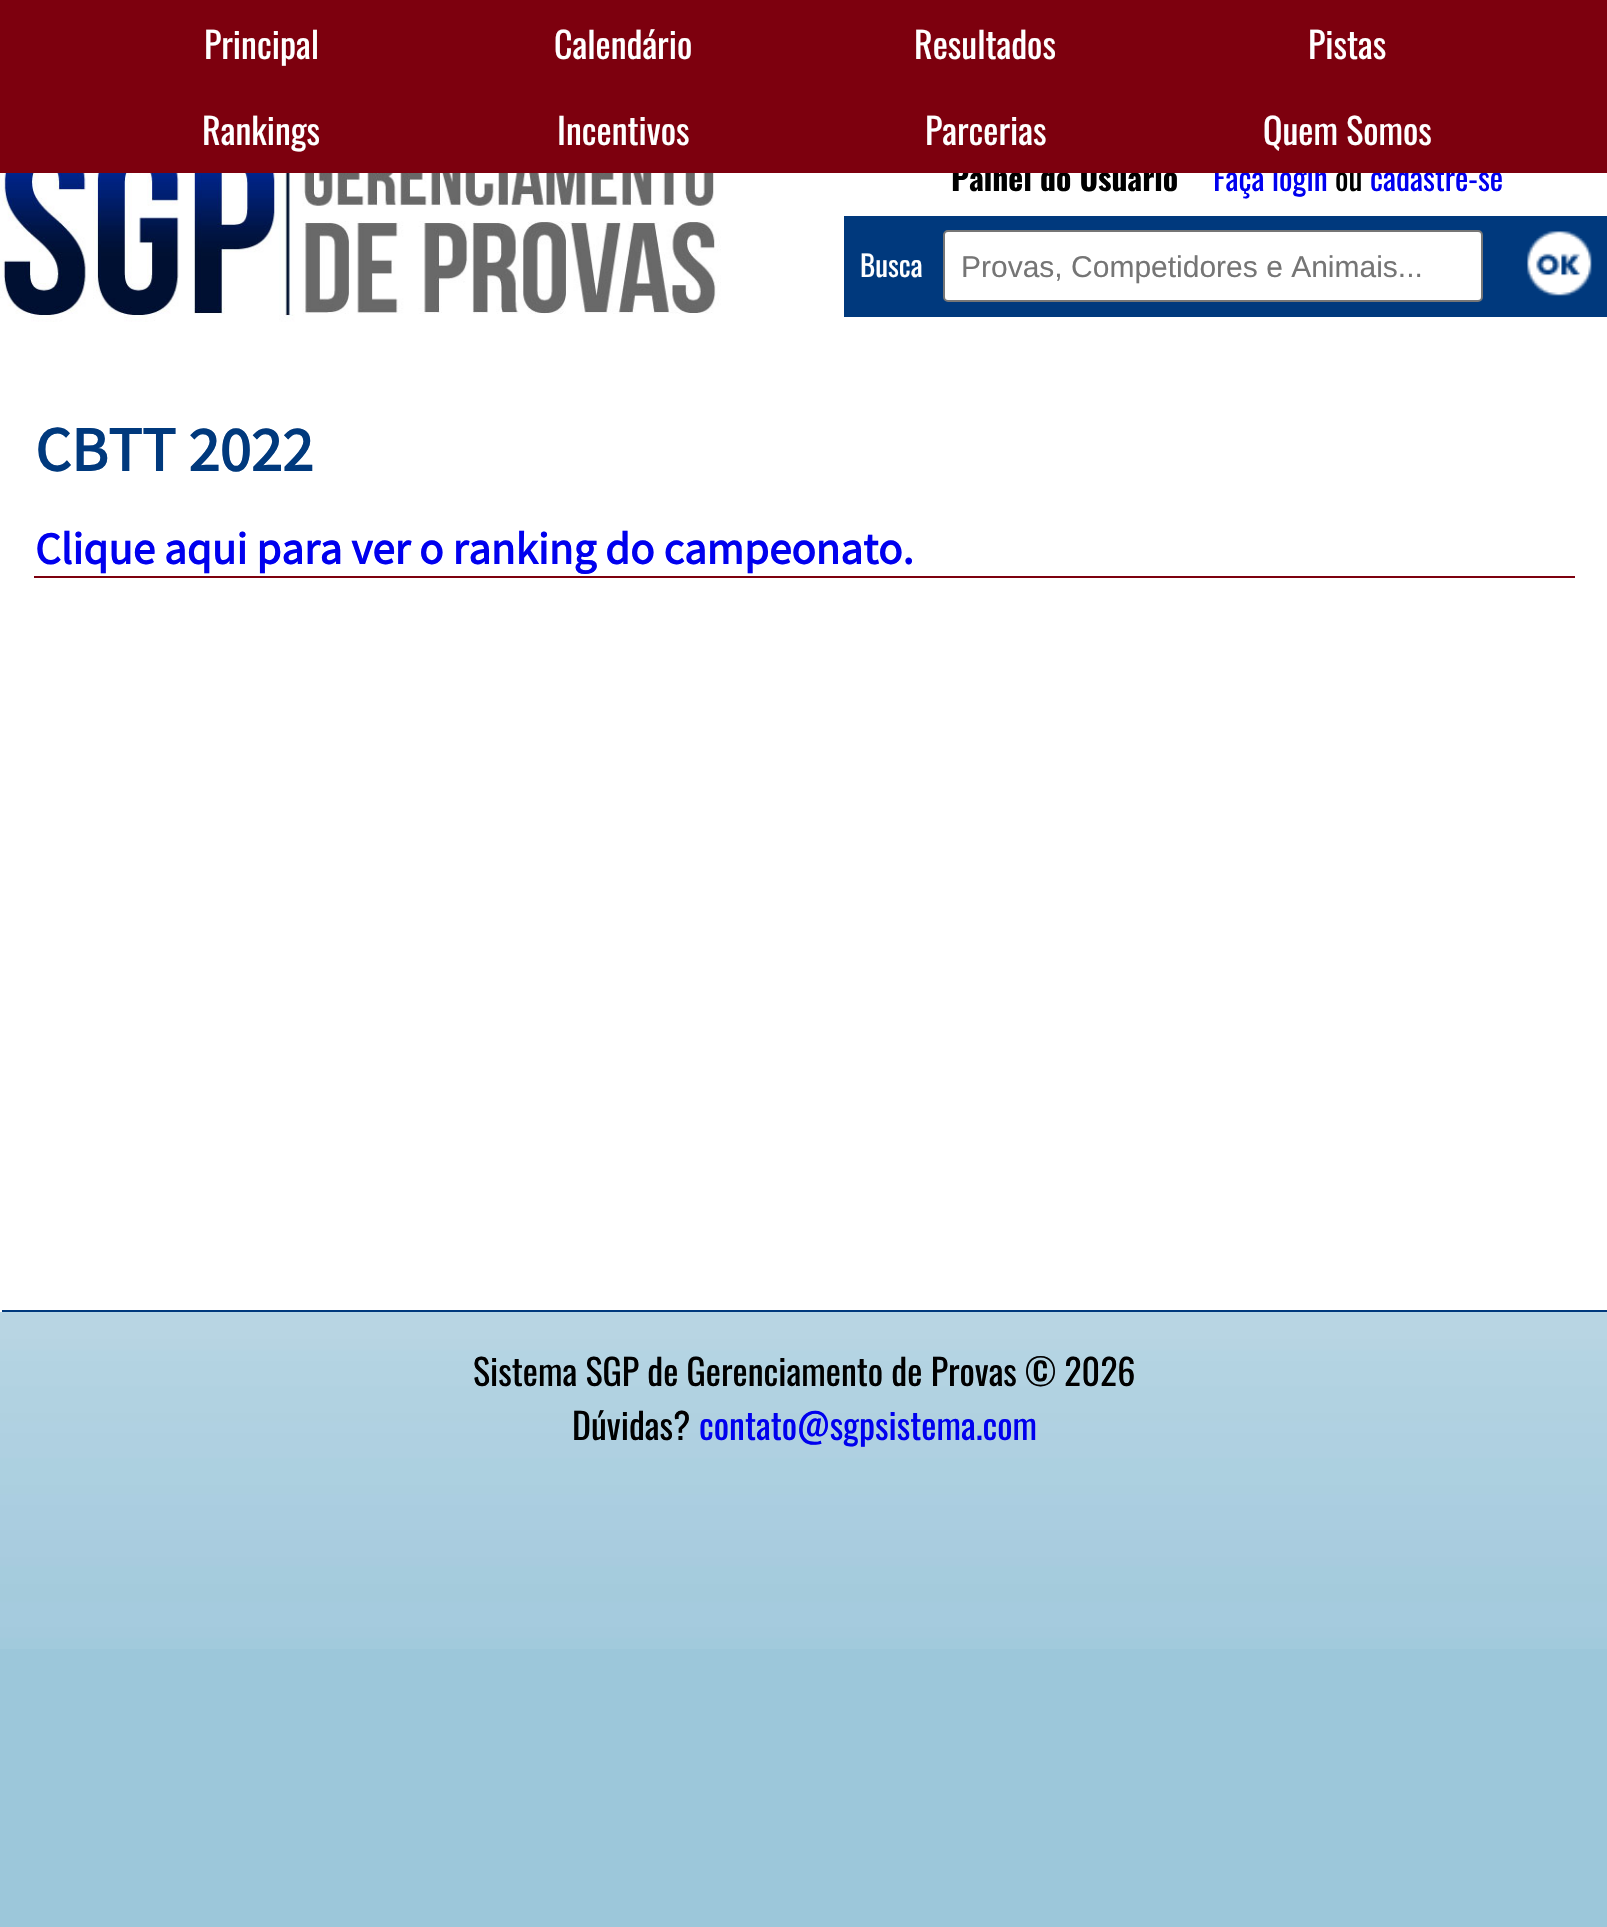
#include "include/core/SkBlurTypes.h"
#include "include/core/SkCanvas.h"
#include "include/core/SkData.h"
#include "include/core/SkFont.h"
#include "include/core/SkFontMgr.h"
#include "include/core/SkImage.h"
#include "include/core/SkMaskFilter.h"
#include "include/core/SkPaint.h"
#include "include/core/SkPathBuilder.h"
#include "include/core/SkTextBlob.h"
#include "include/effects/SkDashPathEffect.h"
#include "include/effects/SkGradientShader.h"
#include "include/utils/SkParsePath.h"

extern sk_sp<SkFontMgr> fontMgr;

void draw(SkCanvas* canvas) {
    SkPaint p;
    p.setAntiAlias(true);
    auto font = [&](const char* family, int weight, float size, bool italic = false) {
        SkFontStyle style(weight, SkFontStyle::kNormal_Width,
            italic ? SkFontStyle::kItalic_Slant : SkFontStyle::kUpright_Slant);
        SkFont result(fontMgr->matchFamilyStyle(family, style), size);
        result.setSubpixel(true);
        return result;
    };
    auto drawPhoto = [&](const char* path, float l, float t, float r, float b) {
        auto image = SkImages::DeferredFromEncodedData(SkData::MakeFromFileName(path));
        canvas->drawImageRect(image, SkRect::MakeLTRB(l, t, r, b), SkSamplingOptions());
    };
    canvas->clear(0xFF9CC7DA);
    drawPhoto("media/1.png", 0, 1312, 1607, 1649);
    p.setColor(0xFFFFFFFF);
    canvas->drawRect(SkRect::MakeLTRB(0, 173, 1607, 1312), p);
    auto font1 = font("Oswald", 700, 31.75f);
    p.setColor(0xFF000000);
    canvas->drawString("Painel do Usuário", 951, 191, font1, p);
    auto font2 = font("Oswald", 400, 31.75f);
    p.setColor(0xFF0000EE);
    canvas->drawString("Faça login", 1213, 191, font2, p);
    p.setColor(0xFF000000);
    canvas->drawString("ou", 1335, 191, font2, p);
    p.setColor(0xFF0000EE);
    canvas->drawString("cadastre-se", 1370, 191, font2, p);
    p.setColor(0xFF7D000E);
    canvas->drawRect(SkRect::MakeLTRB(0, 0, 1607, 173), p);
    auto font3 = font("Oswald", 400, 36);
    p.setColor(0xFFFFFFFF);
    {
        const struct { const char* s; float x, y; } items[] = {
            {"Principal", 204, 59},
            {"Calendário", 554, 59},
            {"Resultados", 914, 59},
            {"Pistas", 1308, 59},
            {"Rankings", 202, 145},
            {"Incentivos", 557, 145},
            {"Parcerias", 925, 145},
            {"Quem Somos", 1263, 145},
        };
        for (auto [s, x, y] : items) {
            canvas->drawString(s, x, y, font3, p);
        }
    }
    drawPhoto("media/2.png", 0, 173, 721, 322);
    p.setColor(0xFF00397D);
    canvas->drawRect(SkRect::MakeLTRB(844, 216, 1607, 317), p);
    auto font4 = font("Oswald", 400, 29);
    p.setColor(0xFFFFFFFF);
    canvas->drawString("Busca", 860, 277, font4, p);
    canvas->drawRoundRect(SkRect::MakeLTRB(944, 231, 1482, 301), 4, 4, p);
    p.setStyle(SkPaint::kStroke_Style);
    p.setStrokeWidth(2);
    p.setColor(0xFF767676);
    canvas->drawRoundRect(SkRect::MakeLTRB(944, 231, 1482, 301), 4, 4, p);
    auto font5 = font("Liberation Sans", 400, 30);
    p.setStyle(SkPaint::kFill_Style);
    p.setColor(0xFF757575);
    canvas->drawString("Provas, Competidores e Animais...", 961, 277, font5, p);
    drawPhoto("media/3.png", 1527, 231, 1592, 296);
    p.setColor(0xFF00397D);
    canvas->drawRect(SkRect::MakeLTRB(2, 1310, 1607, 1312), p);
    auto font6 = font("Source Sans Pro", 700, 63);
    canvas->drawString("CBTT 2022", 35, 471, font6, p);
    p.setColor(0xFF7D000E);
    canvas->drawRect(SkRect::MakeLTRB(34, 576, 1575, 578), p);
    auto font7 = font("Source Sans Pro", 700, 45);
    p.setColor(0xFF0000EE);
    canvas->drawString("Clique aqui para ver o ranking do campeonato.", 35, 564, font7, p);
    p.setColor(0xFF000000);
    canvas->drawString("Sistema SGP de Gerenciamento de Provas © 2026", 473, 1386, font3, p);
    canvas->drawString("Dúvidas?", 572, 1440, font3, p);
    p.setColor(0xFF0000EE);
    canvas->drawString("contato@sgpsistema.com", 699, 1440, font3, p);
}
